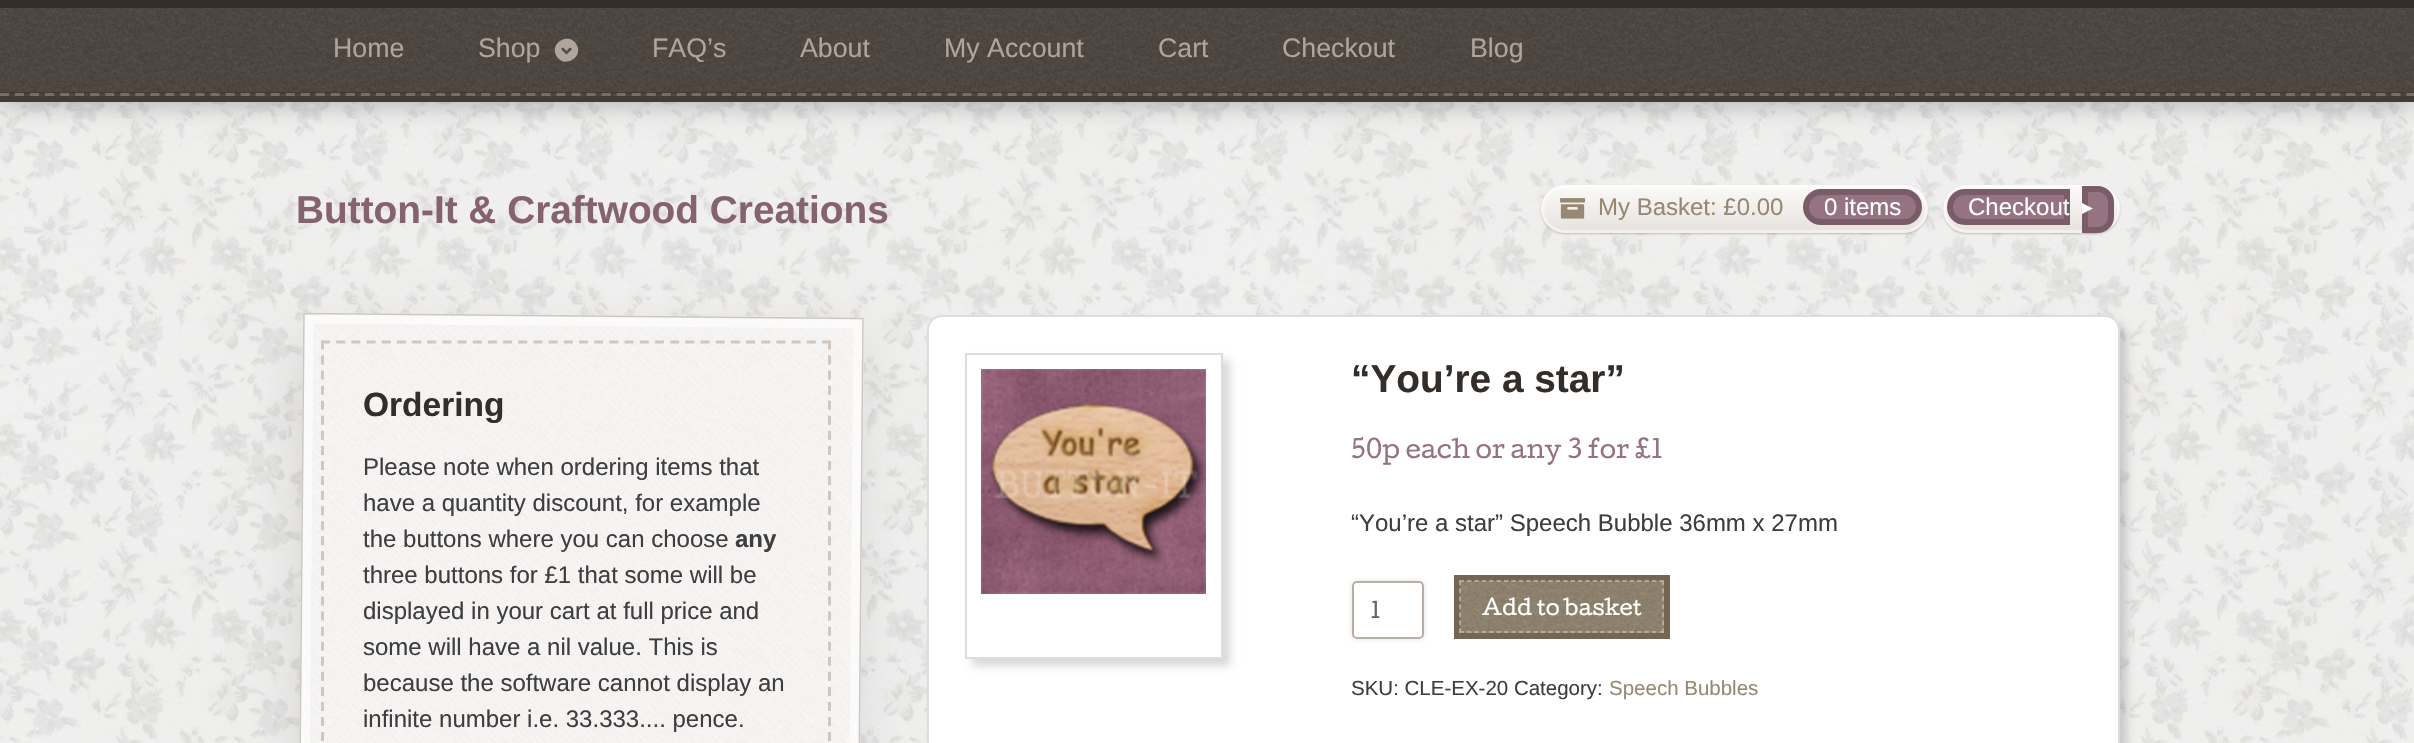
#include "include/core/SkBlurTypes.h"
#include "include/core/SkCanvas.h"
#include "include/core/SkData.h"
#include "include/core/SkFont.h"
#include "include/core/SkFontMgr.h"
#include "include/core/SkImage.h"
#include "include/core/SkMaskFilter.h"
#include "include/core/SkPaint.h"
#include "include/core/SkPathBuilder.h"
#include "include/core/SkTextBlob.h"
#include "include/effects/SkDashPathEffect.h"
#include "include/effects/SkGradientShader.h"
#include "include/utils/SkParsePath.h"

extern sk_sp<SkFontMgr> fontMgr;

void draw(SkCanvas* canvas) {
    SkPaint p;
    p.setAntiAlias(true);
    auto font = [&](const char* family, int weight, float size, bool italic = false) {
        SkFontStyle style(weight, SkFontStyle::kNormal_Width,
            italic ? SkFontStyle::kItalic_Slant : SkFontStyle::kUpright_Slant);
        SkFont result(fontMgr->matchFamilyStyle(family, style), size);
        result.setSubpixel(true);
        return result;
    };
    auto drawPhoto = [&](const char* path, float l, float t, float r, float b) {
        auto image = SkImages::DeferredFromEncodedData(SkData::MakeFromFileName(path));
        canvas->drawImageRect(image, SkRect::MakeLTRB(l, t, r, b), SkSamplingOptions());
    };
    canvas->clear(0xFFFFFFFF);
    drawPhoto("media/1.png", 0, 102, 2414, 743);
    drawPhoto("media/2.png", 0, 102, 2414, 743);
    p.setColor(0x40000000);
    p.setMaskFilter(SkMaskFilter::MakeBlur(kNormal_SkBlurStyle, 12));
    canvas->drawRect(SkRect::MakeLTRB(0, 9, 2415, 105), p);
    p.setMaskFilter(nullptr);
    p.setColor(0xFF423B36);
    canvas->drawRect(SkRect::MakeLTRB(0, 96, 2414, 102), p);
    p.setColor(0xFF504841);
    canvas->drawRect(SkRect::MakeLTRB(0, 8, 2414, 96), p);
    drawPhoto("media/3.png", 0, 8, 2414, 96);
    p.setColor(0xFF423B36);
    canvas->drawRect(SkRect::MakeLTRB(0, 92, 2414, 94), p);
    p.setColor(0xFF342E2A);
    canvas->drawRect(SkRect::MakeLTRB(0, 0, 2414, 8), p);
    p.setStyle(SkPaint::kStroke_Style);
    p.setStrokeWidth(3);
    p.setColor(0xFF7A6D63);
    p.setPathEffect(SkDashPathEffect::Make({{9, 6.04f}}, 0));
    canvas->drawPath(SkPathBuilder().moveTo(0, 94.5f).lineTo(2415, 94.5f).detach(), p);
    p.setPathEffect(nullptr);
    auto font1 = font("Liberation Sans", 400, 26.75f);
    p.setStyle(SkPaint::kFill_Style);
    p.setColor(0xFFB0A59C);
    canvas->drawString("Home", 333, 57, font1, p);
    canvas->drawString("Shop", 478, 57, font1, p);
    canvas->drawPath(SkPathBuilder().moveTo(566.5f, 54.5f).lineTo(572, 49).lineTo(570, 47.5f).lineTo(566.5f, 51).lineTo(563, 47.5f).lineTo(561, 49).close().moveTo(576.5f, 44.5f).cubicTo(584, 57.5f, 564, 69, 556.5f, 56).cubicTo(549, 43, 569, 31.5f, 576.5f, 44.5f).close().detach(), p);
    {
        const struct { const char* s; float x, y; } items[] = {
            {"FAQ’s", 652, 57},
            {"About", 800, 57},
            {"My Account", 944, 57},
            {"Cart", 1158, 57},
            {"Checkout", 1282, 57},
            {"Blog", 1470, 57},
        };
        for (auto [s, x, y] : items) {
            canvas->drawString(s, x, y, font1, p);
        }
    }
    auto font2 = font("Liberation Sans", 700, 38.8f);
    p.setColor(0xFF856270);
    canvas->drawString("Button-It & Craftwood Creations", 296, 223, font2, p);
    p.setColor(0x33000000);
    p.setMaskFilter(SkMaskFilter::MakeBlur(kNormal_SkBlurStyle, 1));
    canvas->drawRoundRect(SkRect::MakeLTRB(1541, 186, 1928, 234), 24, 24, p);
    p.setMaskFilter(nullptr);
    {
        const SkColor colors[] = {0xFFFCFBFA, 0xFFE6E1DD};
        const float stops[] = {0, 1};
        const SkPoint ends[] = {{1734, 184}, {1734, 233}};
        p.setShader(SkGradientShader::MakeLinear(ends, colors, stops, 2, SkTileMode::kClamp));
        p.setAlpha(255);
    }
    canvas->drawRoundRect(SkRect::MakeLTRB(1541, 185, 1928, 233), 24, 24, p);
    p.setStyle(SkPaint::kStroke_Style);
    p.setShader(nullptr);
    p.setColor(0x80FFFFFF);
    canvas->drawRoundRect(SkRect::MakeLTRB(1542.5f, 186.5f, 1926.5f, 231.5f), 22.5f, 22.5f, p);
    drawPhoto("media/4.png", 1560, 198, 1585, 219);
    auto font3 = font("Liberation Sans", 400, 24);
    p.setStyle(SkPaint::kFill_Style);
    p.setColor(0xFF968873);
    canvas->drawString("My Basket: £0.00", 1598, 215, font3, p);
    p.setColor(0xFF967381);
    canvas->drawRoundRect(SkRect::MakeLTRB(1806, 192, 1919, 222), 15, 15, p);
    p.setStyle(SkPaint::kStroke_Style);
    p.setStrokeWidth(6);
    p.setColor(0xFF7A5C68);
    canvas->drawRoundRect(SkRect::MakeLTRB(1806, 192, 1919, 222), 15, 15, p);
    p.setStyle(SkPaint::kFill_Style);
    p.setColor(0xFFFFFFFF);
    canvas->drawString("0 items", 1824, 215, font3, p);
    p.setColor(0x33000000);
    p.setMaskFilter(SkMaskFilter::MakeBlur(kNormal_SkBlurStyle, 1));
    canvas->drawRoundRect(SkRect::MakeLTRB(1943, 186, 2120, 234), 24, 24, p);
    p.setMaskFilter(nullptr);
    {
        const SkColor colors[] = {0xFFFCFBFA, 0xFFE6E1DD};
        const float stops[] = {0, 1};
        const SkPoint ends[] = {{2031, 185}, {2031, 233}};
        p.setShader(SkGradientShader::MakeLinear(ends, colors, stops, 2, SkTileMode::kClamp));
        p.setAlpha(255);
    }
    canvas->drawRoundRect(SkRect::MakeLTRB(1943, 185, 2120, 233), 24, 24, p);
    p.setStyle(SkPaint::kStroke_Style);
    p.setStrokeWidth(3);
    p.setShader(nullptr);
    p.setColor(0x80FFFFFF);
    canvas->drawRoundRect(SkRect::MakeLTRB(1944.5f, 186.5f, 2118.5f, 231.5f), 22.5f, 22.5f, p);
    p.setStyle(SkPaint::kFill_Style);
    p.setColor(0xFF967381);
    canvas->drawPath(SkPathBuilder().moveTo(1965, 192).lineTo(2067, 192).lineTo(2067, 222).lineTo(1965, 222).cubicTo(1956.5f, 222, 1950, 215.5f, 1950, 207).cubicTo(1950, 198.5f, 1956.5f, 192, 1965, 192).close().detach(), p);
    p.setStyle(SkPaint::kStroke_Style);
    p.setStrokeWidth(6);
    p.setColor(0xFF7A5C68);
    canvas->drawPath(SkPathBuilder().moveTo(1965, 192).lineTo(2067, 192).lineTo(2067, 222).lineTo(1965, 222).cubicTo(1956.5f, 222, 1950, 215.5f, 1950, 207).cubicTo(1950, 198.5f, 1956.5f, 192, 1965, 192).close().detach(), p);
    p.setStyle(SkPaint::kFill_Style);
    p.setColor(0xFF967381);
    canvas->drawPath(SkPathBuilder().moveTo(2085, 189).lineTo(2098, 189).cubicTo(2105, 189, 2111, 195, 2111, 202).lineTo(2111, 217).cubicTo(2111, 224, 2105, 230, 2098, 230).lineTo(2085, 230).close().detach(), p);
    p.setStyle(SkPaint::kStroke_Style);
    p.setColor(0xFF7A5C68);
    canvas->drawPath(SkPathBuilder().moveTo(2085, 189).lineTo(2098, 189).cubicTo(2105, 189, 2111, 195, 2111, 202).lineTo(2111, 217).cubicTo(2111, 224, 2105, 230, 2098, 230).lineTo(2085, 230).close().detach(), p);
    p.setStyle(SkPaint::kFill_Style);
    p.setColor(0xFFFFFFFF);
    canvas->drawString("Checkout", 1968, 215, font3, p);
    canvas->drawPath(SkPathBuilder().moveTo(2093, 208.5f).lineTo(2082, 214).lineTo(2082, 203).close().detach(), p);
    p.setColor(0x26000000);
    p.setMaskFilter(SkMaskFilter::MakeBlur(kNormal_SkBlurStyle, 4));
    canvas->drawRoundRect(SkRect::MakeLTRB(935, 323, 2127, 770), 15, 15, p);
    p.setMaskFilter(nullptr);
    p.setColor(0xFFFFFFFF);
    canvas->drawRoundRect(SkRect::MakeLTRB(928, 316, 2119, 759), 14, 14, p);
    p.setStyle(SkPaint::kStroke_Style);
    p.setStrokeWidth(2);
    p.setColor(0xFFDDDDDD);
    canvas->drawRoundRect(SkRect::MakeLTRB(928, 316, 2119, 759), 14, 14, p);
    p.setStyle(SkPaint::kFill_Style);
    p.setColor(0x1A000000);
    p.setMaskFilter(SkMaskFilter::MakeBlur(kNormal_SkBlurStyle, 24));
    canvas->drawRect(SkRect::MakeLTRB(296, 339, 857, 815), p);
    p.setMaskFilter(nullptr);
    drawPhoto("media/5.png", 299, 312, 864, 743);
    p.setStyle(SkPaint::kStroke_Style);
    p.setStrokeWidth(9.2f);
    p.setColor(0x99FFFFFF);
    canvas->drawPath(SkPathBuilder().moveTo(309, 319).lineTo(858, 324).lineTo(842.5f, 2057).lineTo(294, 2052.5f).close().detach(), p);
    p.setStrokeWidth(1.5f);
    p.setColor(0xFFCCC7C3);
    canvas->drawPath(SkPathBuilder().moveTo(304, 313.5f).lineTo(863, 318.5f).lineTo(848, 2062.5f).lineTo(288.5f, 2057.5f).close().detach(), p);
    p.setStrokeWidth(3);
    p.setColor(0xFFD0C7C0);
    p.setPathEffect(SkDashPathEffect::Make({{9, 6.18f}}, 0));
    canvas->drawPath(SkPathBuilder().moveTo(321, 342).lineTo(831, 342).detach(), p);
    p.setPathEffect(nullptr);
    p.setPathEffect(SkDashPathEffect::Make({{9, 6.06f}}, 0));
    canvas->drawPath(SkPathBuilder().moveTo(829.5f, 340.5f).lineTo(829.5f, 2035.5f).detach(), p);
    p.setPathEffect(nullptr);
    p.setPathEffect(SkDashPathEffect::Make({{9, 6.06f}}, 0));
    canvas->drawPath(SkPathBuilder().moveTo(322.5f, 340.5f).lineTo(322.5f, 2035.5f).detach(), p);
    p.setPathEffect(nullptr);
    auto font4 = font("Liberation Sans", 700, 33.5f);
    p.setStyle(SkPaint::kFill_Style);
    p.setColor(0xFF342E2A);
    canvas->drawString("Ordering", 363, 416, font4, p);
    p.setColor(0xFF3E3E3E);
    {
        const struct { const char* s; float x, y; } items[] = {
            {"Please note when ordering items that", 363, 475},
            {"have a quantity discount, for example", 363, 511},
            {"the buttons where you can choose", 363, 547},
        };
        for (auto [s, x, y] : items) {
            canvas->drawString(s, x, y, font3, p);
        }
    }
    auto font5 = font("Liberation Sans", 700, 24);
    canvas->drawString("any", 735, 547, font5, p);
    {
        const struct { const char* s; float x, y; } items[] = {
            {"three buttons for £1 that some will be", 363, 583},
            {"displayed in your cart at full price and", 363, 619},
            {"some will have a nil value. This is", 363, 655},
            {"because the software cannot display an", 363, 691},
            {"infinite number i.e. 33.333.... pence.", 363, 727},
        };
        for (auto [s, x, y] : items) {
            canvas->drawString(s, x, y, font3, p);
        }
    }
    p.setColor(0x26000000);
    p.setMaskFilter(SkMaskFilter::MakeBlur(kNormal_SkBlurStyle, 4));
    canvas->drawRect(SkRect::MakeLTRB(972, 360, 1230, 666), p);
    p.setMaskFilter(nullptr);
    p.setColor(0xFFFFFFFF);
    canvas->drawRect(SkRect::MakeLTRB(966, 354, 1222, 658), p);
    p.setStyle(SkPaint::kStroke_Style);
    p.setStrokeWidth(2);
    p.setColor(0xFFDDDDDD);
    canvas->drawRect(SkRect::MakeLTRB(966, 354, 1222, 658), p);
    drawPhoto("media/6.png", 981, 369, 1206, 594);
    p.setStyle(SkPaint::kFill_Style);
    p.setColor(0xFF342E2A);
    canvas->drawString("“You’re a star”", 1351, 392, font2, p);
    auto font6 = font("Cutive", 400, 24);
    p.setColor(0xFF967381);
    canvas->drawString("50p each or any 3 for £1", 1351, 458, font6, p);
    p.setColor(0xFF3E3E3E);
    canvas->drawString("“You’re a star” Speech Bubble 36mm x 27mm", 1351, 531, font3, p);
    canvas->save();
    canvas->clipPath(SkPathBuilder(SkPathFillType::kEvenOdd).moveTo(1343, 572).lineTo(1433, 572).lineTo(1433, 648).lineTo(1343, 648).close().moveTo(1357, 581).lineTo(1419, 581).cubicTo(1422, 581, 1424, 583, 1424, 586).lineTo(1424, 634).cubicTo(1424, 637, 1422, 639, 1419, 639).lineTo(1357, 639).cubicTo(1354, 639, 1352, 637, 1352, 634).lineTo(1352, 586).cubicTo(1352, 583, 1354, 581, 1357, 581).close().detach(), true);
    p.setColor(0xFFE5E1DE);
    p.setMaskFilter(SkMaskFilter::MakeBlur(kNormal_SkBlurStyle, 2.5f));
    canvas->drawRoundRect(SkRect::MakeLTRB(1352, 581, 1424, 639), 5, 5, p);
    p.setMaskFilter(nullptr);
    canvas->restore();
    p.setStyle(SkPaint::kStroke_Style);
    p.setColor(0xFFB7AEA6);
    canvas->drawRoundRect(SkRect::MakeLTRB(1353, 582, 1423, 638), 4, 4, p);
    auto font7 = font("Cutive", 400, 20.5f);
    p.setStyle(SkPaint::kFill_Style);
    p.setColor(0xFF6C6158);
    canvas->drawString("1", 1370, 618, font7, p);
    p.setStyle(SkPaint::kStroke_Style);
    p.setStrokeWidth(7);
    p.setColor(0xFF746651);
    canvas->drawRect(SkRect::MakeLTRB(1457.5f, 578.5f, 1666.5f, 635.5f), p);
    p.setStyle(SkPaint::kFill_Style);
    p.setColor(0xFF968873);
    canvas->drawRect(SkRect::MakeLTRB(1460, 581, 1664, 633), p);
    drawPhoto("media/7.png", 1459, 580, 1664, 633);
    p.setStyle(SkPaint::kStroke_Style);
    p.setStrokeWidth(1.5f);
    p.setColor(0xFFBBB8B4);
    p.setPathEffect(SkDashPathEffect::Make({{4.5f, 2.9f}}, 0));
    canvas->drawPath(SkPathBuilder().moveTo(1459.5f, 581).lineTo(1663.5f, 581).detach(), p);
    p.setPathEffect(nullptr);
    p.setPathEffect(SkDashPathEffect::Make({{4.5f, 3.5f}}, 0));
    canvas->drawPath(SkPathBuilder().moveTo(1663, 580.5f).lineTo(1663, 633).detach(), p);
    p.setPathEffect(nullptr);
    p.setPathEffect(SkDashPathEffect::Make({{4.5f, 2.9f}}, 0));
    canvas->drawPath(SkPathBuilder().moveTo(1459.5f, 632).lineTo(1663.5f, 632).detach(), p);
    p.setPathEffect(nullptr);
    p.setPathEffect(SkDashPathEffect::Make({{4.5f, 3.5f}}, 0));
    canvas->drawPath(SkPathBuilder().moveTo(1460, 580.5f).lineTo(1460, 633).detach(), p);
    p.setPathEffect(nullptr);
    p.setStyle(SkPaint::kFill_Style);
    p.setColor(0xFFFFFFFF);
    canvas->drawString("Add to basket", 1482, 615, font7, p);
    auto font8 = font("Liberation Sans", 400, 20.5f);
    p.setColor(0xFF3E3E3E);
    canvas->drawString("SKU: CLE-EX-20 Category:", 1351, 695, font8, p);
    p.setColor(0xFF968873);
    canvas->drawString("Speech Bubbles", 1609, 695, font8, p);
}
